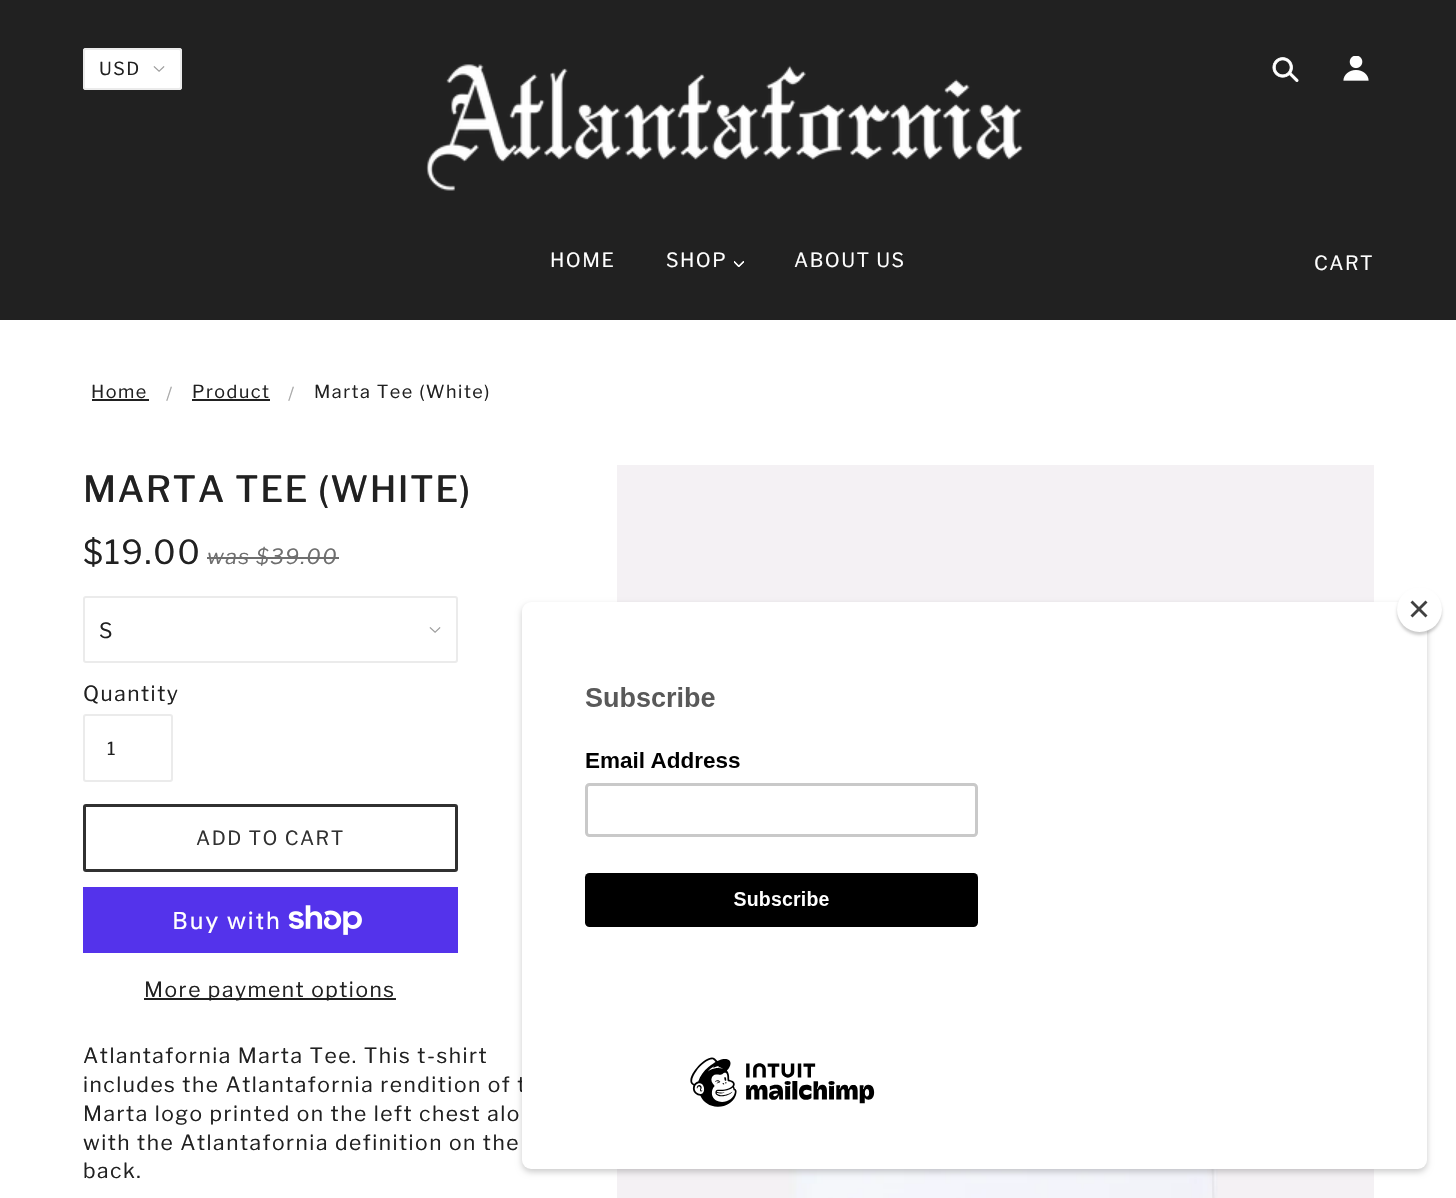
#include "include/core/SkBlurTypes.h"
#include "include/core/SkCanvas.h"
#include "include/core/SkData.h"
#include "include/core/SkFont.h"
#include "include/core/SkFontMgr.h"
#include "include/core/SkImage.h"
#include "include/core/SkMaskFilter.h"
#include "include/core/SkPaint.h"
#include "include/core/SkPathBuilder.h"
#include "include/core/SkTextBlob.h"
#include "include/effects/SkDashPathEffect.h"
#include "include/effects/SkGradientShader.h"
#include "include/utils/SkParsePath.h"

extern sk_sp<SkFontMgr> fontMgr;

void draw(SkCanvas* canvas) {
    SkPaint p;
    p.setAntiAlias(true);
    auto font = [&](const char* family, int weight, float size, bool italic = false) {
        SkFontStyle style(weight, SkFontStyle::kNormal_Width,
            italic ? SkFontStyle::kItalic_Slant : SkFontStyle::kUpright_Slant);
        SkFont result(fontMgr->matchFamilyStyle(family, style), size);
        result.setSubpixel(true);
        return result;
    };
    auto drawTracked = [&](const char* s, float x, float y, const SkFont& font, const SkPaint& ink, float letter, float word) {
        std::vector<SkGlyphID> glyphs(font.countText(s, strlen(s), SkTextEncoding::kUTF8));
        std::vector<float> xs(glyphs.size());
        font.textToGlyphs(s, strlen(s), SkTextEncoding::kUTF8, glyphs);
        font.getXPos(glyphs, xs, x);
        float extra = 0;
        for (size_t i = 0; i < glyphs.size(); i++) {
            xs[i] += extra;
            extra += letter + word * (glyphs[i] == font.unicharToGlyph(' '));
        }
        canvas->drawTextBlob(SkTextBlob::MakeFromPosHGlyphs(glyphs, xs, y, font), 0, 0, ink);
    };
    auto drawPhoto = [&](const char* path, float l, float t, float r, float b) {
        auto image = SkImages::DeferredFromEncodedData(SkData::MakeFromFileName(path));
        canvas->drawImageRect(image, SkRect::MakeLTRB(l, t, r, b), SkSamplingOptions());
    };
    canvas->clear(0xFFFFFFFF);
    p.setColor(0xFF212121);
    canvas->drawRect(SkRect::MakeLTRB(0, 0, 1456, 320), p);
    p.setColor(0xFFFFFFFF);
    canvas->drawRoundRect(SkRect::MakeLTRB(83, 48, 182, 90), 3, 3, p);
    drawPhoto("media/1.png", 153, 66, 165, 72);
    p.setStyle(SkPaint::kStroke_Style);
    p.setStrokeWidth(2);
    p.setColor(0xFFEBEBEB);
    canvas->drawRoundRect(SkRect::MakeLTRB(84, 49, 181, 89), 2, 2, p);
    auto font1 = font("Libre Franklin", 400, 18);
    p.setStyle(SkPaint::kFill_Style);
    p.setColor(0xFF212121);
    drawTracked("USD", 99, 75, font1, p, 1.5f, 0);
    drawPhoto("media/2.png", 426, 64, 1023, 191);
    drawPhoto("media/3.png", 1272, 57, 1299, 82);
    drawPhoto("media/4.png", 1343, 56, 1369, 81);
    auto font2 = font("Libre Franklin", 400, 19.5f);
    p.setColor(0xFFFFFFFF);
    drawTracked("HOME", 550, 267, font2, p, 1.5f, 0);
    drawTracked("SHOP", 666, 267, font2, p, 1.5f, 0);
    drawPhoto("media/5.png", 734, 261, 744, 267);
    drawTracked("ABOUT US", 794, 267, font2, p, 1.5f, 0);
    drawTracked("CART", 1314, 270, font2, p, 1.5f, 0);
    p.setColor(0xFF212121);
    drawTracked("Home", 91, 398, font1, p, 1.5f, 0);
    canvas->drawRect(SkRect::MakeLTRB(92, 399, 149, 401), p);
    p.setColor(0xFFAAAAAA);
    drawTracked("/", 166, 400, font1, p, 1.5f, 0);
    p.setColor(0xFF212121);
    drawTracked("Product", 192, 398, font1, p, 1.5f, 0);
    canvas->drawRect(SkRect::MakeLTRB(192, 399, 270, 401), p);
    p.setColor(0xFFAAAAAA);
    drawTracked("/", 288, 400, font1, p, 1.5f, 0);
    p.setColor(0xFF212121);
    drawTracked("Marta Tee (White)", 314, 398, font1, p, 1.5f, 0);
    auto font3 = font("Libre Franklin", 500, 36);
    drawTracked("MARTA TEE (WHITE)", 83, 502, font3, p, 1.5f, 0);
    drawPhoto("media/6.png", 617, 465, 1374, 1198);
    auto font4 = font("Libre Franklin", 400, 33);
    drawTracked("$19.00", 83, 564, font4, p, 1.5f, 0);
    auto font5 = font("Libre Franklin", 400, 21, true);
    p.setColor(0xFF6E6E6E);
    drawTracked("was", 207, 564, font5, p, 1.5f, 0);
    canvas->drawRect(SkRect::MakeLTRB(207, 557, 257, 559), p);
    drawTracked("$39.00", 256, 564, font5, p, 1.5f, 0);
    canvas->drawRect(SkRect::MakeLTRB(257, 557, 339, 559), p);
    drawPhoto("media/1.png", 429, 627, 441, 633);
    p.setStyle(SkPaint::kStroke_Style);
    p.setColor(0xFFEBEBEB);
    canvas->drawRoundRect(SkRect::MakeLTRB(84, 597, 457, 662), 2, 2, p);
    auto font6 = font("Libre Franklin", 400, 21);
    p.setStyle(SkPaint::kFill_Style);
    p.setColor(0xFF212121);
    drawTracked("S", 99, 638, font6, p, 1.5f, 0);
    drawTracked("Quantity", 83, 701, font6, p, 1.5f, 0);
    p.setStyle(SkPaint::kStroke_Style);
    p.setColor(0xFFEBEBEB);
    canvas->drawRoundRect(SkRect::MakeLTRB(84, 715, 172, 781), 2, 2, p);
    p.setStyle(SkPaint::kFill_Style);
    p.setColor(0xFF212121);
    drawTracked("1", 107, 755, font1, p, 1, 0);
    p.setStyle(SkPaint::kStroke_Style);
    p.setStrokeWidth(3);
    p.setColor(0xFF313131);
    canvas->drawRoundRect(SkRect::MakeLTRB(84.5f, 805.5f, 456.5f, 870.5f), 1.5f, 1.5f, p);
    p.setStyle(SkPaint::kFill_Style);
    drawTracked("ADD TO CART", 196, 845, font2, p, 1.5f, 0);
    p.setColor(0xFF5433EB);
    canvas->drawRect(SkRect::MakeLTRB(83, 887, 458, 953), p);
    auto font7 = font("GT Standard", 400, 24);
    p.setColor(0xFFFFFFFF);
    drawTracked("Buy with", 172, 929, font7, p, 1.5f, 0);
    drawPhoto("media/7.png", 288, 905, 362, 935);
    p.setColor(0xFF212121);
    canvas->drawRect(SkRect::MakeLTRB(144, 998, 396, 1000), p);
    {
        const struct { const char* s; float x, y; } items[] = {
            {"More payment options", 144, 997},
            {"Atlantafornia Marta Tee. This t-shirt", 83, 1063},
            {"includes the Atlantafornia rendition of t", 83, 1092},
            {"Marta logo printed on the left chest alo", 83, 1121},
            {"with the Atlantafornia definition on the", 83, 1150},
            {"back.", 83, 1178},
        };
        for (auto [s, x, y] : items) {
            drawTracked(s, x, y, font6, p, 1.5f, 0);
        }
    }
    p.setColor(0x33000000);
    p.setMaskFilter(SkMaskFilter::MakeBlur(kNormal_SkBlurStyle, 3));
    canvas->drawRoundRect(SkRect::MakeLTRB(522, 605, 1427, 1172), 9, 9, p);
    p.setMaskFilter(nullptr);
    p.setColor(0xFFFFFFFF);
    canvas->drawRoundRect(SkRect::MakeLTRB(522, 602, 1427, 1169), 9, 9, p);
    p.setColor(0x33000000);
    p.setMaskFilter(SkMaskFilter::MakeBlur(kNormal_SkBlurStyle, 1.5f));
    canvas->drawRoundRect(SkRect::MakeLTRB(1397, 590, 1442, 635), 22.5f, 22.5f, p);
    p.setMaskFilter(nullptr);
    p.setColor(0xFFFFFFFF);
    canvas->drawCircle(1419.5f, 609.5f, 22.5f, p);
    p.setColor(0xFF414141);
    canvas->drawPath(SkPathBuilder().moveTo(1425.5f, 600.5f).lineTo(1427.5f, 602.5f).lineTo(1412.5f, 617.5f).lineTo(1410.5f, 615.5f).close().detach(), p);
    canvas->drawPath(SkPathBuilder().moveTo(1410.5f, 602.5f).lineTo(1412.5f, 600.5f).lineTo(1427.5f, 615.5f).lineTo(1425.5f, 617.5f).close().detach(), p);
    drawPhoto("media/8.png", 584, 687, 978, 1107);
}
